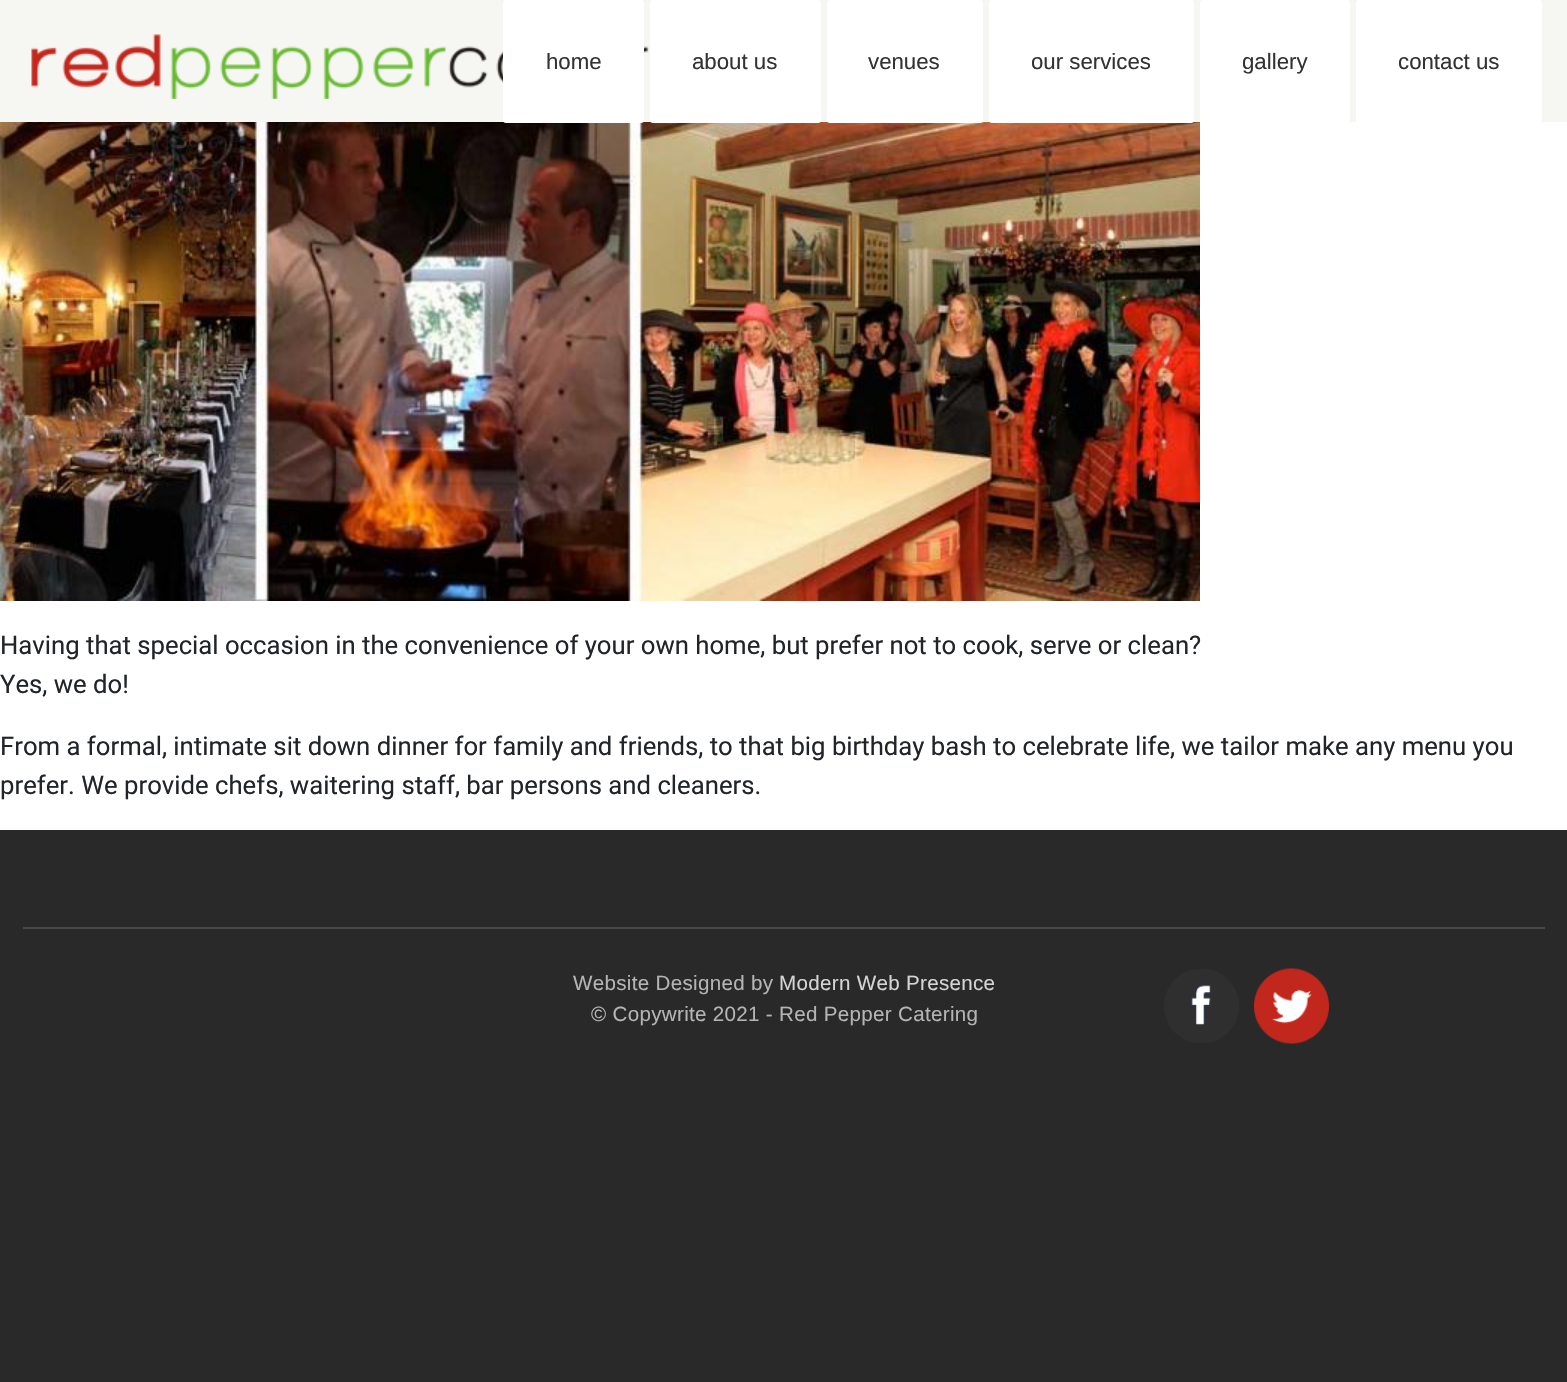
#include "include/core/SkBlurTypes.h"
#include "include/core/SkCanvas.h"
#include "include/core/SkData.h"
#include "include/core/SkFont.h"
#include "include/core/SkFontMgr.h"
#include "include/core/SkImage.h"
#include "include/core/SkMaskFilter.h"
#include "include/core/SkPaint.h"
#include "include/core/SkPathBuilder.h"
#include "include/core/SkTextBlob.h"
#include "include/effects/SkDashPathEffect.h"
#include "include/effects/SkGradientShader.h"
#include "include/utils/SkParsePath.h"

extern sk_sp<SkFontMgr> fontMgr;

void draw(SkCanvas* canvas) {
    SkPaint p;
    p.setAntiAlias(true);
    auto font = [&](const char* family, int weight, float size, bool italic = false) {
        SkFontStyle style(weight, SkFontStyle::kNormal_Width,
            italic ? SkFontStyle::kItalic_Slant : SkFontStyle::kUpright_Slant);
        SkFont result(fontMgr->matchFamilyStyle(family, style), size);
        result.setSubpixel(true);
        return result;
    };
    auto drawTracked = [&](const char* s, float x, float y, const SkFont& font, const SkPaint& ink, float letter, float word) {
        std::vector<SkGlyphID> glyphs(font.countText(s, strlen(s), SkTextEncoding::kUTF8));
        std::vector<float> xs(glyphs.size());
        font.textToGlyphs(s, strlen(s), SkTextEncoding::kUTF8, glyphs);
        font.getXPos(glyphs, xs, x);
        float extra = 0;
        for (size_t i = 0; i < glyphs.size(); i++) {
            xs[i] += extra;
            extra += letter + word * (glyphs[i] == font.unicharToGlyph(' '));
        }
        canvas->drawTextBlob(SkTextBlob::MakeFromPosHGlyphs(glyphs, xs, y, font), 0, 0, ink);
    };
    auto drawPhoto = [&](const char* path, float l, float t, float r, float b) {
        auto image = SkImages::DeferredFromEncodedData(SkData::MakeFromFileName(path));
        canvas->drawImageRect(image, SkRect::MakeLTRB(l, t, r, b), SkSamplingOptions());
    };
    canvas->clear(0xFF292929);
    p.setColor(0xFFFFFFFF);
    canvas->drawRect(SkRect::MakeLTRB(0, 122, 1567, 830), p);
    p.setColor(0xFFF6F6F2);
    canvas->drawRect(SkRect::MakeLTRB(0, 0, 1567, 122), p);
    drawPhoto("media/1.png", 31, 34, 649, 99);
    drawPhoto("media/2.png", 0, 122, 1200, 601);
    p.setColor(0xFFFFFFFF);
    canvas->drawRoundRect(SkRect::MakeLTRB(503, 0, 644, 123), 3, 3, p);
    auto font1 = font("Liberation Sans", 400, 22.25f);
    p.setColor(0xFF333333);
    canvas->drawString("home", 546, 69, font1, p);
    p.setColor(0xFFFFFFFF);
    canvas->drawRoundRect(SkRect::MakeLTRB(650, 0, 821, 123), 3, 3, p);
    p.setColor(0xFF333333);
    canvas->drawString("about us", 692, 69, font1, p);
    p.setColor(0xFFFFFFFF);
    canvas->drawRoundRect(SkRect::MakeLTRB(827, 0, 983, 123), 3, 3, p);
    p.setColor(0xFF333333);
    canvas->drawString("venues", 868, 69, font1, p);
    p.setColor(0xFFFFFFFF);
    canvas->drawRoundRect(SkRect::MakeLTRB(989, 0, 1194, 123), 3, 3, p);
    p.setColor(0xFF333333);
    canvas->drawString("our services", 1031, 69, font1, p);
    p.setColor(0xFFFFFFFF);
    canvas->drawRoundRect(SkRect::MakeLTRB(1200, 0, 1350, 123), 3, 3, p);
    p.setColor(0xFF333333);
    canvas->drawString("gallery", 1242, 69, font1, p);
    p.setColor(0xFFFFFFFF);
    canvas->drawRoundRect(SkRect::MakeLTRB(1356, 0, 1542, 123), 3, 3, p);
    p.setColor(0xFF333333);
    canvas->drawString("contact us", 1398, 69, font1, p);
    auto font2 = font("Roboto", 400, 25.7f);
    p.setColor(0xFF212529);
    {
        const struct { const char* s; float x, y; } items[] = {
            {"Having that special occasion in the convenience of your own home, but prefer not to cook, serve or clean?", 0, 654},
            {"Yes, we do!", 0, 693},
            {"From a formal, intimate sit down dinner for family and friends, to that big birthday bash to celebrate life, we tailor make any menu you", 0, 755},
            {"prefer. We provide chefs, waitering staff, bar persons and cleaners.", 0, 794},
        };
        for (auto [s, x, y] : items) {
            canvas->drawString(s, x, y, font2, p);
        }
    }
    p.setColor(0xFF494949);
    canvas->drawRect(SkRect::MakeLTRB(23, 927, 1545, 929), p);
    auto font3 = font("Liberation Sans", 400, 20.6f);
    p.setColor(0xFFB4B4B4);
    drawTracked("Website Designed by", 573, 990, font3, p, 0.3f, 0);
    p.setColor(0xFFD4D4D4);
    drawTracked("Modern Web Presence", 779, 990, font3, p, 0.3f, 0);
    p.setColor(0xFFB4B4B4);
    drawTracked("© Copywrite 2021 - Red Pepper Catering", 591, 1021, font3, p, 0.3f, 0);
    drawPhoto("media/3.png", 1164, 969, 1239, 1043);
    drawPhoto("media/4.png", 1254, 968, 1329, 1044);
}
